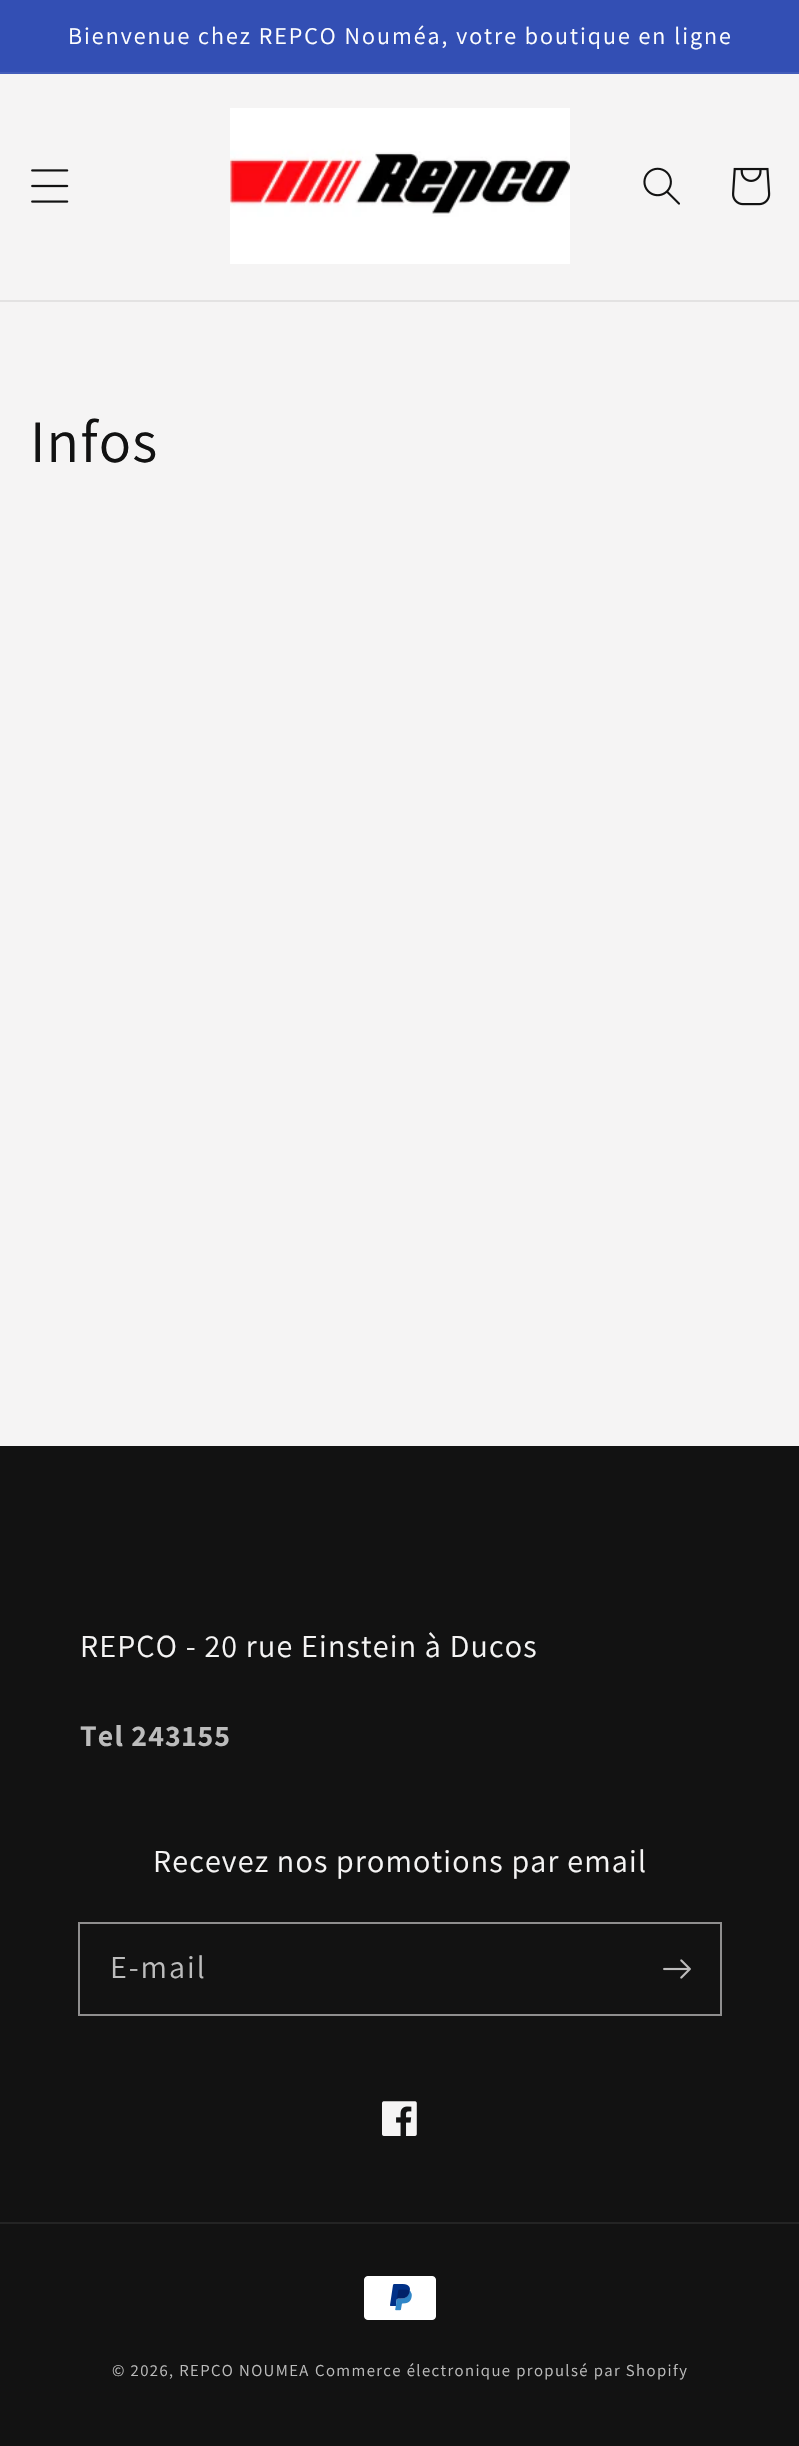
#include "include/core/SkBlurTypes.h"
#include "include/core/SkCanvas.h"
#include "include/core/SkData.h"
#include "include/core/SkFont.h"
#include "include/core/SkFontMgr.h"
#include "include/core/SkImage.h"
#include "include/core/SkMaskFilter.h"
#include "include/core/SkPaint.h"
#include "include/core/SkPathBuilder.h"
#include "include/core/SkTextBlob.h"
#include "include/effects/SkDashPathEffect.h"
#include "include/effects/SkGradientShader.h"
#include "include/utils/SkParsePath.h"

extern sk_sp<SkFontMgr> fontMgr;

void draw(SkCanvas* canvas) {
    SkPaint p;
    p.setAntiAlias(true);
    auto font = [&](const char* family, int weight, float size, bool italic = false) {
        SkFontStyle style(weight, SkFontStyle::kNormal_Width,
            italic ? SkFontStyle::kItalic_Slant : SkFontStyle::kUpright_Slant);
        SkFont result(fontMgr->matchFamilyStyle(family, style), size);
        result.setSubpixel(true);
        return result;
    };
    auto drawTracked = [&](const char* s, float x, float y, const SkFont& font, const SkPaint& ink, float letter, float word) {
        std::vector<SkGlyphID> glyphs(font.countText(s, strlen(s), SkTextEncoding::kUTF8));
        std::vector<float> xs(glyphs.size());
        font.textToGlyphs(s, strlen(s), SkTextEncoding::kUTF8, glyphs);
        font.getXPos(glyphs, xs, x);
        float extra = 0;
        for (size_t i = 0; i < glyphs.size(); i++) {
            xs[i] += extra;
            extra += letter + word * (glyphs[i] == font.unicharToGlyph(' '));
        }
        canvas->drawTextBlob(SkTextBlob::MakeFromPosHGlyphs(glyphs, xs, y, font), 0, 0, ink);
    };
    auto drawPhoto = [&](const char* path, float l, float t, float r, float b) {
        auto image = SkImages::DeferredFromEncodedData(SkData::MakeFromFileName(path));
        canvas->drawImageRect(image, SkRect::MakeLTRB(l, t, r, b), SkSamplingOptions());
    };
    canvas->clear(0xFFF5F4F4);
    p.setColor(0xFF334FB4);
    canvas->drawRect(SkRect::MakeLTRB(0, 0, 799, 72), p);
    p.setColor(0xFF435DBA);
    canvas->drawRect(SkRect::MakeLTRB(0, 72, 799, 74), p);
    auto font1 = font("Assistant", 400, 24);
    p.setColor(0xFFFFFFFF);
    drawTracked("Bienvenue chez REPCO Nouméa, votre boutique en ligne", 68, 44, font1, p, 2, 0);
    p.setColor(0xFFE3E2E2);
    canvas->drawRect(SkRect::MakeLTRB(0, 300, 799, 302), p);
    drawPhoto("media/1.png", 31, 169, 69, 203);
    drawPhoto("media/2.png", 230, 108, 570, 264);
    drawPhoto("media/3.png", 643, 167, 680, 205);
    drawPhoto("media/4.png", 732, 167, 771, 206);
    auto font2 = font("Assistant", 400, 60);
    p.setColor(0xFF121212);
    drawTracked("Infos", 30, 462, font2, p, 1.2f, 0);
    canvas->drawRect(SkRect::MakeLTRB(0, 1446, 799, 2446), p);
    auto font3 = font("Assistant", 400, 32);
    p.setColor(0xFFF5F4F4);
    drawTracked("REPCO - 20 rue Einstein à Ducos", 80, 1657, font3, p, 1.2f, 0);
    auto font4 = font("Assistant", 700, 30);
    p.setColor(0xFFBCBCBC);
    drawTracked("Tel 243155", 80, 1746, font4, p, 1.2f, 0);
    p.setColor(0xFFF5F4F4);
    drawTracked("Recevez nos promotions par email", 153, 1872, font3, p, 1.2f, 0);
    p.setStyle(SkPaint::kStroke_Style);
    p.setStrokeWidth(2);
    p.setColor(0xFF8F8E8E);
    canvas->drawRect(SkRect::MakeLTRB(79, 1923, 721, 2015), p);
    p.setStyle(SkPaint::kFill_Style);
    p.setColor(0xFFBCBCBC);
    drawTracked("E-mail", 110, 1978, font3, p, 2, 0);
    drawPhoto("media/5.png", 663, 1959, 691, 1979);
    drawPhoto("media/6.png", 382, 2101, 417, 2136);
    p.setColor(0xFF242424);
    canvas->drawRect(SkRect::MakeLTRB(0, 2222, 799, 2224), p);
    drawPhoto("media/7.png", 364, 2276, 436, 2320);
    auto font5 = font("Assistant", 400, 16.7f);
    p.setColor(0xFFBCBCBC);
    drawTracked("© 2026, REPCO NOUMEA", 112, 2376, font5, p, 1.4f, 0);
    drawTracked("Commerce électronique propulsé par Shopify", 315, 2376, font5, p, 1.4f, 0);
}
